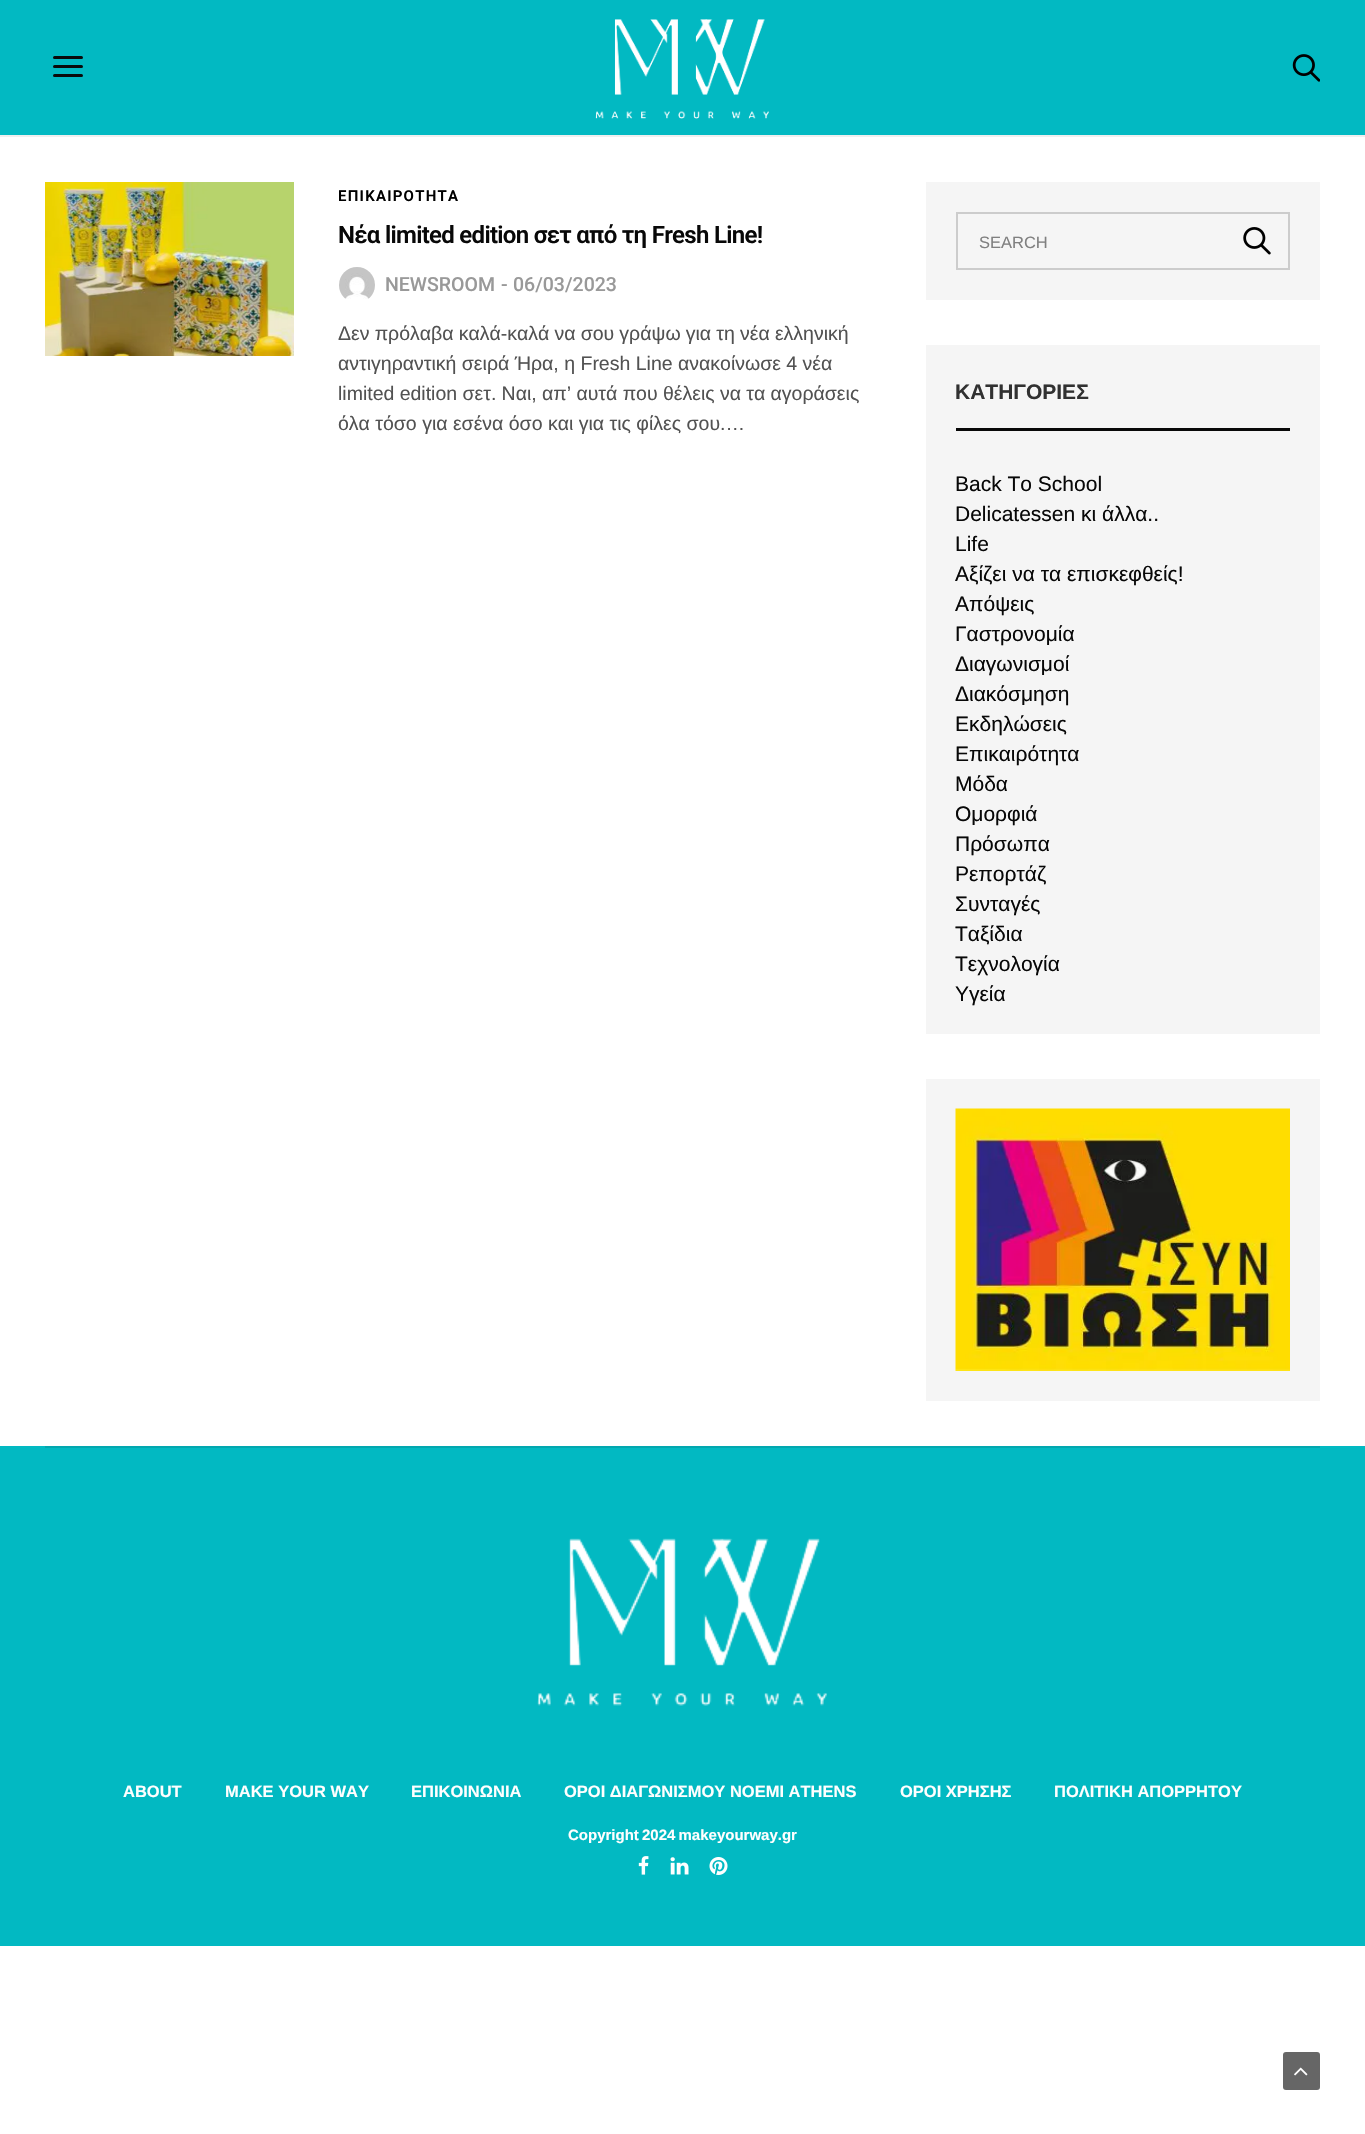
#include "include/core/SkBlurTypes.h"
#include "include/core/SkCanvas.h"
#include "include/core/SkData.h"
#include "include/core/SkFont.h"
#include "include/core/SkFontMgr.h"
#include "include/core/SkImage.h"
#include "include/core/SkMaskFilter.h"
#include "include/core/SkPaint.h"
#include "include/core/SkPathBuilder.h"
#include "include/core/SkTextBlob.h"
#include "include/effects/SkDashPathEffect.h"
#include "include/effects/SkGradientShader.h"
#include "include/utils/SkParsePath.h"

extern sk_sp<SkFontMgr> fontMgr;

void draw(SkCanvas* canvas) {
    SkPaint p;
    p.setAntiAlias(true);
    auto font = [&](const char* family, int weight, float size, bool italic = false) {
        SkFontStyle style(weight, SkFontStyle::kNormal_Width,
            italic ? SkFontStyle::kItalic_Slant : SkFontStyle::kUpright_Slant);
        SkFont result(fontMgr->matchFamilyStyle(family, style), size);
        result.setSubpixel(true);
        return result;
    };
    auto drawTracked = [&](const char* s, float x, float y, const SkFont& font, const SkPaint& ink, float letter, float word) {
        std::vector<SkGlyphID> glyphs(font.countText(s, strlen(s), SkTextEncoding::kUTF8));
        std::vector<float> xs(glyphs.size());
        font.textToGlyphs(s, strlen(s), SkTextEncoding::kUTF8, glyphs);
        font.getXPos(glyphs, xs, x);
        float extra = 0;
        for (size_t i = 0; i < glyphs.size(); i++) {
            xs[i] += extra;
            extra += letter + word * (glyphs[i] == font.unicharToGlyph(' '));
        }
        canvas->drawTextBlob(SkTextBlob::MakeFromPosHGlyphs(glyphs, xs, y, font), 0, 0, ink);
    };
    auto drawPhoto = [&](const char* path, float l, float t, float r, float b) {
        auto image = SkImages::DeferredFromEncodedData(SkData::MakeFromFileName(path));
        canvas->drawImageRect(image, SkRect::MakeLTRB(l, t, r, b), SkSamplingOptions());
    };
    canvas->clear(0xFFFFFFFF);
    p.setColor(0xFF02B9C2);
    canvas->drawRect(SkRect::MakeLTRB(0, 0, 1365, 135), p);
    p.setColor(0xFFEFEFEF);
    canvas->drawRect(SkRect::MakeLTRB(0, 135, 1365, 137), p);
    p.setColor(0xFF0A0A0A);
    canvas->drawRoundRect(SkRect::MakeLTRB(53, 56, 83, 59), 1.5f, 1.5f, p);
    canvas->drawRoundRect(SkRect::MakeLTRB(53, 65, 83, 68), 1.5f, 1.5f, p);
    canvas->drawRoundRect(SkRect::MakeLTRB(53, 74, 83, 77), 1.5f, 1.5f, p);
    drawPhoto("media/1.png", 595, 19, 769, 119);
    drawPhoto("media/2.png", 1292, 54, 1320, 82);
    drawPhoto("media/3.png", 45, 182, 294, 356);
    auto font1 = font("Roboto", 600, 15);
    p.setColor(0xFF000000);
    drawTracked("ΕΠΙΚΑΙΡΟΤΗΤΑ", 338, 201, font1, p, 1.25f, 0);
    auto font2 = font("Roboto", 600, 24);
    p.setColor(0xFF080808);
    drawTracked("Νέα limited edition σετ από τη Fresh Line!", 338, 243, font2, p, -0.7f, 0);
    drawPhoto("media/4.png", 339, 267, 375, 299);
    auto font3 = font("Roboto", 500, 19.5f);
    p.setColor(0xFF999999);
    {
        const struct { const char* s; float x, y; } items[] = {
            {"NEWSROOM", 385, 291},
            {"-", 501, 291},
            {"06/03/2023", 513, 291},
        };
        for (auto [s, x, y] : items) {
            canvas->drawString(s, x, y, font3, p);
        }
    }
    auto font4 = font("Liberation Sans", 400, 19.5f);
    p.setColor(0xFF525252);
    drawTracked("Δεν πρόλαβα καλά-καλά να σου γράψω για τη νέα ελληνική", 338, 340, font4, p, 0, -0.25f);
    canvas->drawString("αντιγηραντική σειρά Ήρα, η Fresh Line ανακοίνωσε 4 νέα", 338, 370, font4, p);
    drawTracked("limited edition σετ. Ναι, απ’ αυτά που θέλεις να τα αγοράσεις", 338, 400, font4, p, 0, -0.1f);
    canvas->drawString("όλα τόσο για εσένα όσο και για τις φίλες σου.…", 338, 430, font4, p);
    p.setColor(0xFFF5F5F5);
    canvas->drawRect(SkRect::MakeLTRB(926, 182, 1320, 300), p);
    p.setStyle(SkPaint::kStroke_Style);
    p.setStrokeWidth(2);
    p.setColor(0xFFCCCCCC);
    canvas->drawRect(SkRect::MakeLTRB(957, 213, 1289, 269), p);
    auto font5 = font("Liberation Sans", 400, 16.5f);
    p.setStyle(SkPaint::kFill_Style);
    p.setColor(0xFF808080);
    canvas->drawString("SEARCH", 979, 248, font5, p);
    drawPhoto("media/5.png", 1243, 227, 1271, 255);
    p.setColor(0xFFF5F5F5);
    canvas->drawRect(SkRect::MakeLTRB(926, 345, 1320, 1034), p);
    p.setColor(0xFF080808);
    canvas->drawRect(SkRect::MakeLTRB(956, 428, 1290, 431), p);
    auto font6 = font("Liberation Sans", 700, 21);
    p.setColor(0xFF313131);
    canvas->drawString("KΑΤΗΓΟΡΙΕΣ", 955, 399, font6, p);
    auto font7 = font("Liberation Sans", 400, 21);
    p.setColor(0xFF080808);
    {
        const struct { const char* s; float x, y; } items[] = {
            {"Back To School", 955, 491},
            {"Delicatessen κι άλλα..", 955, 521},
            {"Life", 955, 551},
            {"Αξίζει να τα επισκεφθείς!", 955, 581},
            {"Απόψεις", 955, 611},
            {"Γαστρονομία", 955, 641},
            {"Διαγωνισμοί", 955, 671},
            {"Διακόσμηση", 955, 701},
            {"Εκδηλώσεις", 955, 731},
            {"Επικαιρότητα", 955, 761},
            {"Μόδα", 955, 791},
            {"Ομορφιά", 955, 821},
            {"Πρόσωπα", 955, 851},
            {"Ρεπορτάζ", 955, 881},
            {"Συνταγές", 955, 911},
            {"Ταξίδια", 955, 941},
            {"Τεχνολογία", 955, 971},
            {"Υγεία", 955, 1001},
        };
        for (auto [s, x, y] : items) {
            canvas->drawString(s, x, y, font7, p);
        }
    }
    p.setColor(0xFFF5F5F5);
    canvas->drawRect(SkRect::MakeLTRB(926, 1079, 1320, 1401), p);
    drawPhoto("media/6.png", 955, 1108, 1290, 1371);
    p.setColor(0xFF02B9C2);
    canvas->drawRect(SkRect::MakeLTRB(0, 1446, 1365, 1946), p);
    p.setColor(0xFF02A7AF);
    canvas->drawRect(SkRect::MakeLTRB(45, 1446, 1320, 1448), p);
    drawPhoto("media/7.png", 537, 1538, 827, 1706);
    auto font8 = font("Liberation Sans", 700, 16.5f);
    p.setColor(0xFFFFFFFF);
    {
        const struct { const char* s; float x, y; } items[] = {
            {"ABOUT", 123, 1797},
            {"MAKE YOUR WAY", 225, 1797},
            {"ΕΠΙΚΟΙΝΩΝΙΑ", 411, 1797},
            {"ΟΡΟΙ ΔΙΑΓΩΝΙΣΜΟΥ NOEMI ATHENS", 564, 1797},
            {"ΟΡΟΙ ΧΡΗΣΗΣ", 900, 1797},
            {"ΠΟΛΙΤΙΚΗ ΑΠΟΡΡΗΤΟΥ", 1054, 1797},
        };
        for (auto [s, x, y] : items) {
            canvas->drawString(s, x, y, font8, p);
        }
    }
    auto font9 = font("Liberation Sans", 700, 15);
    drawTracked("Copyright 2024 makeyourway.gr", 568, 1840, font9, p, 0, -1);
    drawPhoto("media/8.png", 638, 1856, 649, 1875);
    drawPhoto("media/9.png", 670, 1857, 689, 1875);
    drawPhoto("media/10.png", 709, 1857, 728, 1875);
    p.setColor(0xFF666666);
    canvas->drawRoundRect(SkRect::MakeLTRB(1283, 2052, 1320, 2090), 3, 3, p);
    drawPhoto("media/11.png", 1294, 2067, 1308, 2076);
}
